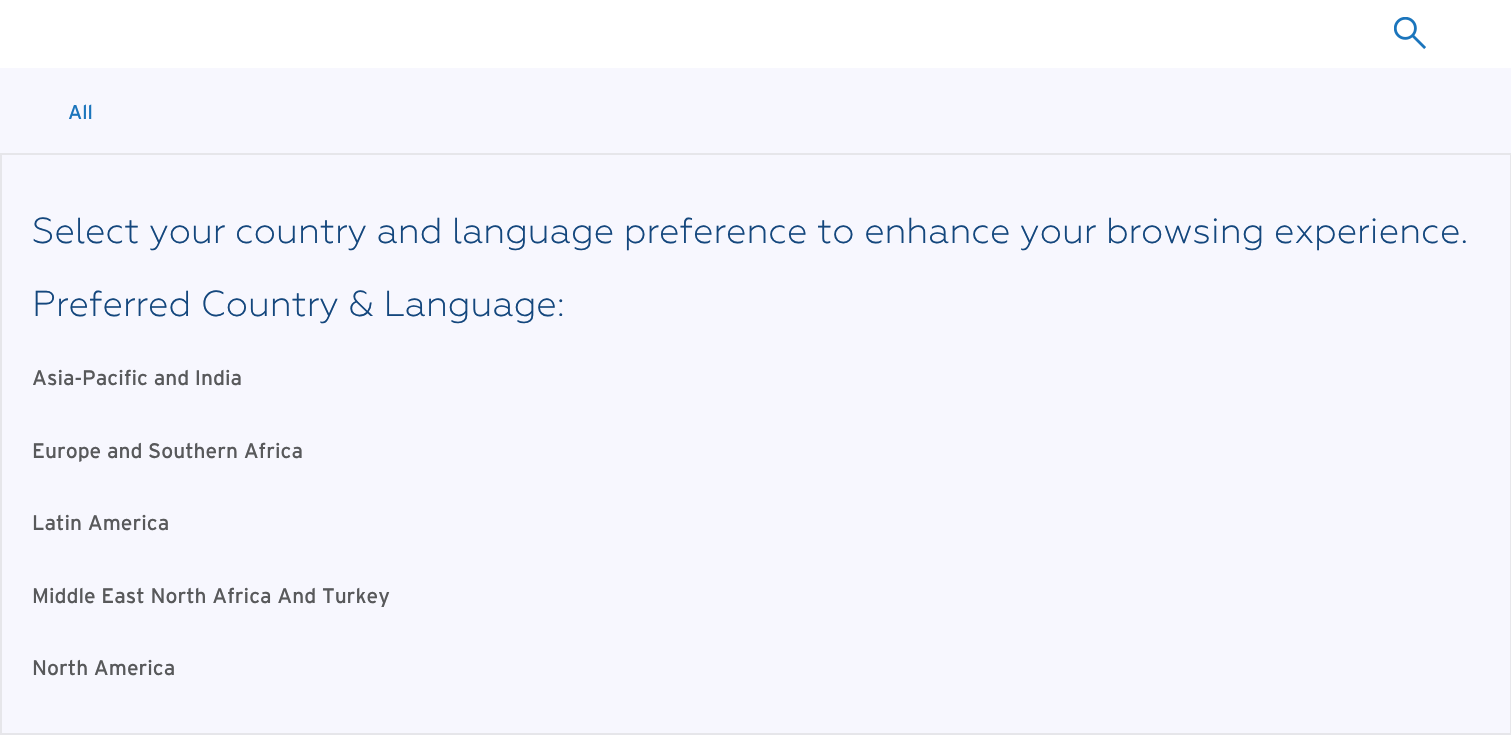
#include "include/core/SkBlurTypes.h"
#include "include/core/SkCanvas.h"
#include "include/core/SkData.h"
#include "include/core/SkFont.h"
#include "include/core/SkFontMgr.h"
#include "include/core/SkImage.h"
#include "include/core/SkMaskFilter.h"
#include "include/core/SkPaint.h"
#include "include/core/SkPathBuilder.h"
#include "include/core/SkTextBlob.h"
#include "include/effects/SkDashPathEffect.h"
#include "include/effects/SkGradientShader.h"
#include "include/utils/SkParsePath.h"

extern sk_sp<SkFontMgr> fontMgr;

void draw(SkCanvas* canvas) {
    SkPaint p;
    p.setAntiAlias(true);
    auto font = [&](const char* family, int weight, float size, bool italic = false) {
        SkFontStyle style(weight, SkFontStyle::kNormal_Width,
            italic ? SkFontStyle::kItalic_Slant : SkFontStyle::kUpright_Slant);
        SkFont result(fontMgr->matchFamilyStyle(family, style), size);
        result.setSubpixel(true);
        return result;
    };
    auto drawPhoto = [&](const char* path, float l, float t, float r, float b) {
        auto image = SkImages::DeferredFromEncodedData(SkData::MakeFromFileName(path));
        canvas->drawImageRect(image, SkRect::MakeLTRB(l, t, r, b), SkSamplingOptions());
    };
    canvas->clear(0xFFFFFFFF);
    drawPhoto("media/1.png", 1394, 17, 1426, 49);
    p.setColor(0xFFF7F7FE);
    canvas->drawRect(SkRect::MakeLTRB(0, 68, 1511, 733), p);
    auto font1 = font("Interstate", 400, 20);
    p.setColor(0xFF1B75BC);
    canvas->drawString("All", 68, 119, font1, p);
    p.setStyle(SkPaint::kStroke_Style);
    p.setStrokeWidth(2);
    p.setColor(0xFFE6E6EA);
    canvas->drawRect(SkRect::MakeLTRB(1, 154, 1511, 734), p);
    auto font2 = font("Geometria", 300, 36);
    p.setStyle(SkPaint::kFill_Style);
    p.setColor(0xFF14477D);
    canvas->drawString("Select your country and language preference to enhance your browsing experience.", 32, 243, font2, p);
    canvas->drawString("Preferred Country & Language:", 32, 316, font2, p);
    auto font3 = font("Interstate", 400, 21);
    p.setColor(0xFF58595B);
    {
        const struct { const char* s; float x, y; } items[] = {
            {"Asia-Pacific and India", 32, 385},
            {"Europe and Southern Africa", 32, 458},
            {"Latin America", 32, 530},
            {"Middle East North Africa And Turkey", 32, 603},
            {"North America", 32, 675},
        };
        for (auto [s, x, y] : items) {
            canvas->drawString(s, x, y, font3, p);
        }
    }
}
